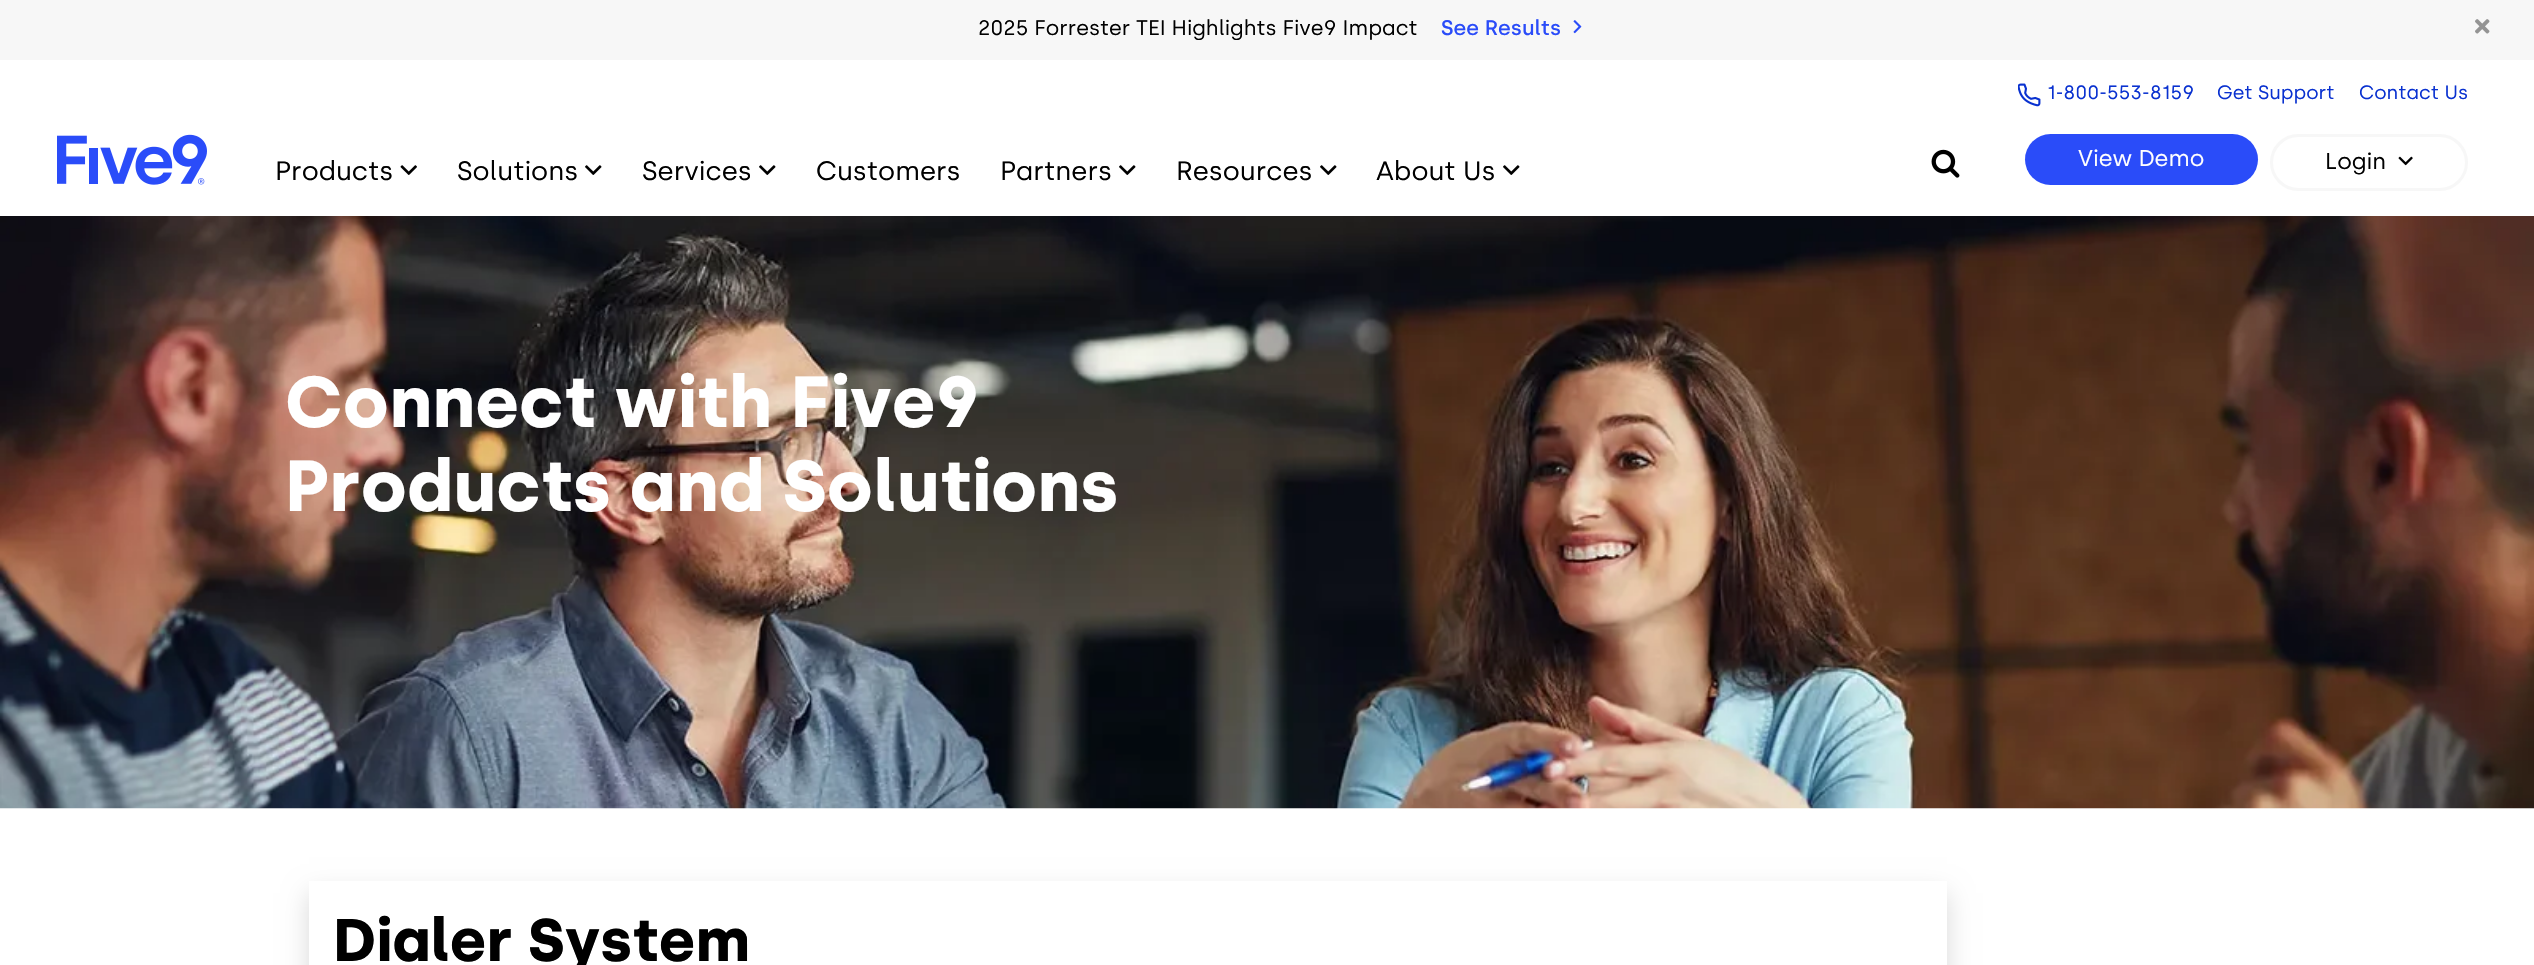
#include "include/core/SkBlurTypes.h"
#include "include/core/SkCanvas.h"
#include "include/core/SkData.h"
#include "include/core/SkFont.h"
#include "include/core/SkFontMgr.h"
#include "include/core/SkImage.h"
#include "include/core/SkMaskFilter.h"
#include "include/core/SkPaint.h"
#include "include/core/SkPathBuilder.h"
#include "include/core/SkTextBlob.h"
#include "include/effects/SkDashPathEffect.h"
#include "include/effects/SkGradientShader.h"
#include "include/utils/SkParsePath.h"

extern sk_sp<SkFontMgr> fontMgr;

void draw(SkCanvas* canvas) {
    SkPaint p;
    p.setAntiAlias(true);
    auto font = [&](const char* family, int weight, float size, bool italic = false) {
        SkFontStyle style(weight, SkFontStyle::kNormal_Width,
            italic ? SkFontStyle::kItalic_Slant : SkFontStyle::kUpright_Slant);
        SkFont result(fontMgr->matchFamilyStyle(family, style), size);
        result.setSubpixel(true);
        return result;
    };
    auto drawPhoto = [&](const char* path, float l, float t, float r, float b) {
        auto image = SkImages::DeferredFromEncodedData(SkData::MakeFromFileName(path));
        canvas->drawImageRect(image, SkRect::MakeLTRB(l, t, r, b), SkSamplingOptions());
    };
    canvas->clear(0xFFFFFFFF);
    p.setColor(0xFFF7F7F7);
    canvas->drawRect(SkRect::MakeLTRB(0, 0, 2534, 60), p);
    auto font1 = font("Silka", 400, 21);
    p.setColor(0xFF000000);
    canvas->drawString("2025 Forrester TEI Highlights Five9 Impact", 978, 35, font1, p);
    auto font2 = font("Silka", 500, 21);
    p.setColor(0xFF2A4CF9);
    canvas->drawString("See Results", 1441, 35, font2, p);
    drawPhoto("media/1.png", 1573, 20, 1582, 34);
    drawPhoto("media/2.png", 2475, 19, 2490, 34);
    drawPhoto("media/3.png", 57, 134, 207, 185);
    auto font3 = font("Silka", 400, 26.5f);
    p.setColor(0xFF000000);
    canvas->drawString("Products", 275, 180, font3, p);
    drawPhoto("media/4.png", 400, 165, 417, 175);
    canvas->drawString("Solutions", 457, 180, font3, p);
    drawPhoto("media/5.png", 585, 165, 602, 175);
    canvas->drawString("Services", 642, 180, font3, p);
    drawPhoto("media/5.png", 759, 165, 776, 175);
    canvas->drawString("Customers", 816, 180, font3, p);
    canvas->drawString("Partners", 1000, 180, font3, p);
    drawPhoto("media/5.png", 1119, 165, 1136, 175);
    canvas->drawString("Resources", 1176, 180, font3, p);
    drawPhoto("media/5.png", 1320, 165, 1337, 175);
    canvas->drawString("About Us", 1376, 180, font3, p);
    drawPhoto("media/5.png", 1503, 165, 1520, 175);
    drawPhoto("media/6.png", 2018, 83, 2041, 107);
    auto font4 = font("Silka", 400, 19.25f);
    p.setColor(0xFF0931D0);
    {
        const struct { const char* s; float x, y; } items[] = {
            {"1-800-553-8159", 2047, 99},
            {"Get Support", 2217, 99},
            {"Contact Us", 2359, 99},
        };
        for (auto [s, x, y] : items) {
            canvas->drawString(s, x, y, font4, p);
        }
    }
    drawPhoto("media/7.png", 1931, 149, 1960, 178);
    p.setColor(0xFF2A4CF9);
    canvas->drawRoundRect(SkRect::MakeLTRB(2025, 134, 2258, 185), 25.5f, 25.5f, p);
    auto font5 = font("Silka", 400, 22.75f);
    p.setColor(0xFFFFFFFF);
    canvas->drawString("View Demo", 2078, 166, font5, p);
    p.setStyle(SkPaint::kStroke_Style);
    p.setStrokeWidth(3);
    p.setColor(0xFFF7F7F7);
    canvas->drawRoundRect(SkRect::MakeLTRB(2271.5f, 135.5f, 2466.5f, 189.5f), 27, 27, p);
    p.setStyle(SkPaint::kFill_Style);
    p.setColor(0xFF000000);
    canvas->drawString("Login", 2325, 169, font5, p);
    drawPhoto("media/8.png", 2398, 156, 2413, 166);
    drawPhoto("media/9.png", 0, 216, 2534, 809);
    auto font6 = font("Silka", 700, 72);
    p.setColor(0xFFFFFFFF);
    canvas->drawString("Connect with Five9", 285, 427, font6, p);
    canvas->drawString("Products and Solutions", 285, 511, font6, p);
    canvas->save();
    canvas->clipPath(SkPathBuilder(SkPathFillType::kEvenOdd).moveTo(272, 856).lineTo(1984, 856).lineTo(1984, 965).lineTo(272, 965).close().moveTo(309, 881).lineTo(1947, 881).lineTo(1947, 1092).lineTo(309, 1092).close().detach(), true);
    p.setColor(0x26000000);
    p.setMaskFilter(SkMaskFilter::MakeBlur(kNormal_SkBlurStyle, 12));
    canvas->drawRect(SkRect::MakeLTRB(309, 893, 1947, 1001), p);
    p.setMaskFilter(nullptr);
    canvas->restore();
    auto font7 = font("Silka", 700, 60);
    p.setColor(0xFF000000);
    canvas->drawString("Dialer System", 333, 961, font7, p);
}
